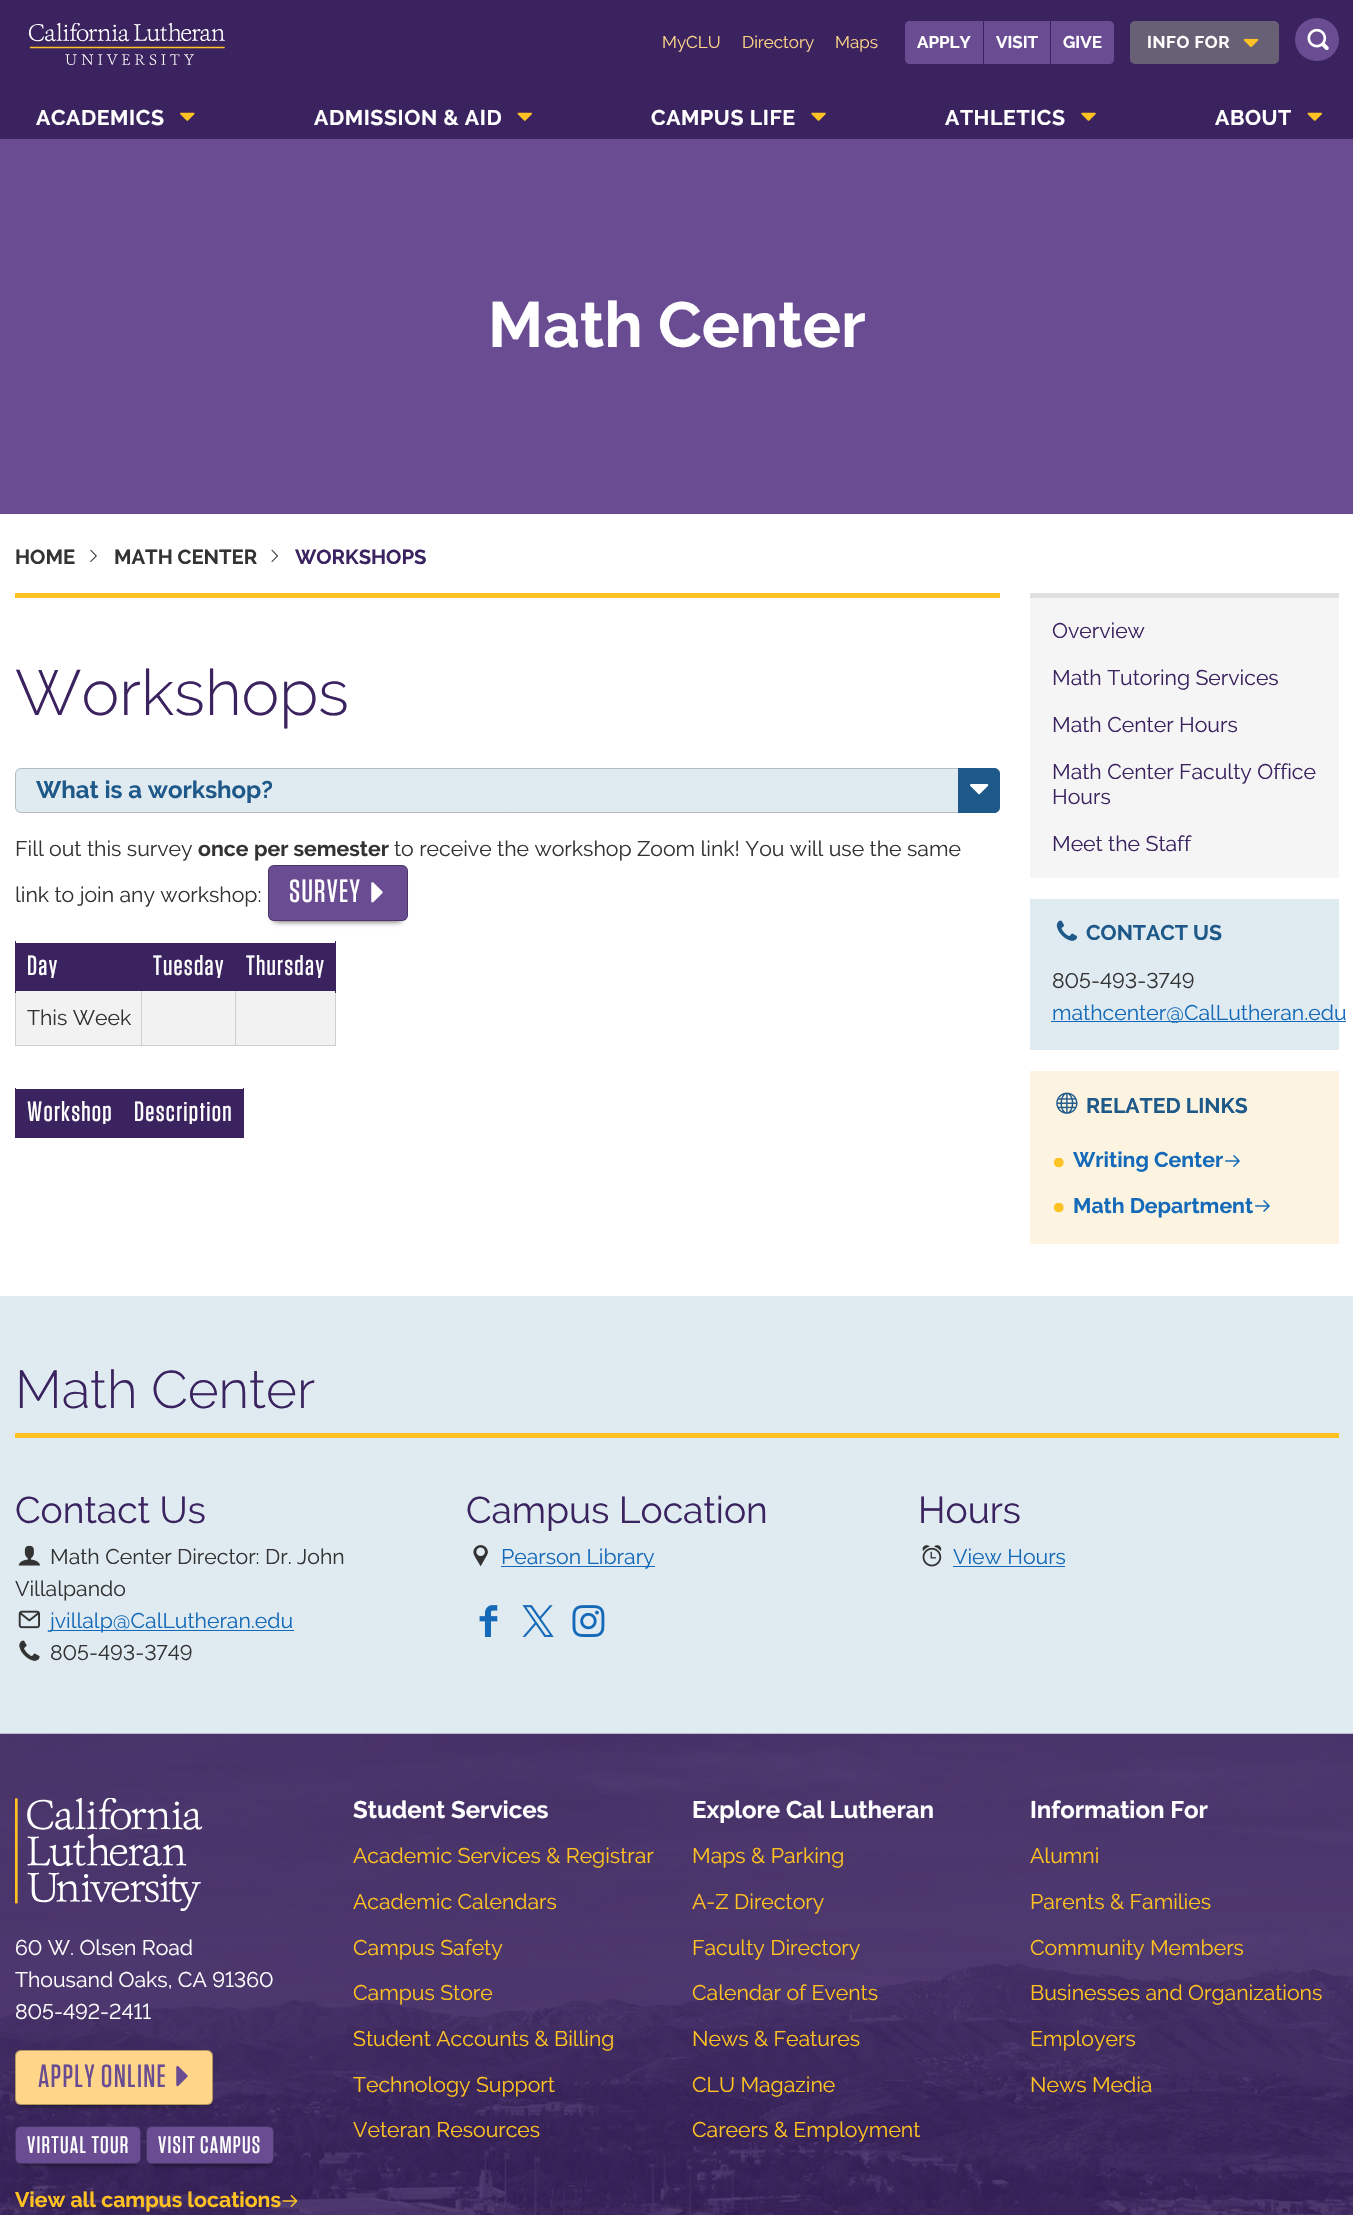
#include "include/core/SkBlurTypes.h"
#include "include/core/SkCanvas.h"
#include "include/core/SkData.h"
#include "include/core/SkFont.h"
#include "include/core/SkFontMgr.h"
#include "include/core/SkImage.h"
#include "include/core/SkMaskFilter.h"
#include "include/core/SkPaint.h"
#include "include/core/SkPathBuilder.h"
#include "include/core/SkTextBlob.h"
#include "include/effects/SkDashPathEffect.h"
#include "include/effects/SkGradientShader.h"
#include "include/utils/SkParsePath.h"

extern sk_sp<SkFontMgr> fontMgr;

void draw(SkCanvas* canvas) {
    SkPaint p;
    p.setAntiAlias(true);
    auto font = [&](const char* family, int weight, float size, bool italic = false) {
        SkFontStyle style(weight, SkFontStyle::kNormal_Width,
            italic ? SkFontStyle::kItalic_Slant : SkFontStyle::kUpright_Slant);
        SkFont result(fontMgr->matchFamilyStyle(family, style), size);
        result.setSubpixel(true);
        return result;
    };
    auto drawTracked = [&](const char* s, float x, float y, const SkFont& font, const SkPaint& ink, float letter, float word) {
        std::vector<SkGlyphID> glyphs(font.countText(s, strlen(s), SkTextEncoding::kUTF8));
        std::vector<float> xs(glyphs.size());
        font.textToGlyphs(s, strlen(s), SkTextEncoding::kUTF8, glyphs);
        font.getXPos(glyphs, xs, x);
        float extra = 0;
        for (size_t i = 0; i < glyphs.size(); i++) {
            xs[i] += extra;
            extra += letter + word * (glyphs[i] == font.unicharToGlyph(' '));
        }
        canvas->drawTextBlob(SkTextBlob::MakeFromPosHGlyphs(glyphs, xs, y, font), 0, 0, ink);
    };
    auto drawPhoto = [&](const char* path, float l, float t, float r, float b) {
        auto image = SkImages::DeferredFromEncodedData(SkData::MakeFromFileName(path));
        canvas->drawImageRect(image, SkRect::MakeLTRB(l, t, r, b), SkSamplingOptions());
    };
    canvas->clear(0xFFFFFFFF);
    p.setColor(0xFF3B2360);
    canvas->drawRect(SkRect::MakeLTRB(0, 0, 1353, 139), p);
    drawPhoto("media/1.png", 28, 23, 225, 65);
    auto font1 = font("Raleway", 400, 17);
    p.setColor(0xFFFFD589);
    {
        const struct { const char* s; float x, y; } items[] = {
            {"MyCLU", 662, 48},
            {"Directory", 742, 48},
            {"Maps", 835, 48},
        };
        for (auto [s, x, y] : items) {
            canvas->drawString(s, x, y, font1, p);
        }
    }
    p.setColor(0xFF6A4C92);
    canvas->drawPath(SkPathBuilder().moveTo(910, 21).lineTo(983, 21).lineTo(983, 64).lineTo(910, 64).cubicTo(907, 64, 905, 62, 905, 59).lineTo(905, 26).cubicTo(905, 23, 907, 21, 910, 21).close().detach(), p);
    auto font2 = font("Raleway", 700, 17);
    p.setColor(0xFFFFFFFF);
    canvas->drawString("APPLY", 917, 48, font2, p);
    p.setColor(0xFF6A4C92);
    canvas->drawRect(SkRect::MakeLTRB(984, 21, 1050, 64), p);
    p.setColor(0xFFFFFFFF);
    canvas->drawString("VISIT", 996, 48, font2, p);
    p.setColor(0xFF6A4C92);
    canvas->drawPath(SkPathBuilder().moveTo(1051, 21).lineTo(1109, 21).cubicTo(1112, 21, 1114, 23, 1114, 26).lineTo(1114, 59).cubicTo(1114, 62, 1112, 64, 1109, 64).lineTo(1051, 64).close().detach(), p);
    p.setColor(0xFFFFFFFF);
    canvas->drawString("GIVE", 1063, 48, font2, p);
    p.setColor(0xFF686074);
    canvas->drawRoundRect(SkRect::MakeLTRB(1130, 21, 1279, 64), 5, 5, p);
    p.setColor(0xFFFFFFFF);
    drawTracked("INFO FOR", 1147, 48, font2, p, 0.6f, 0);
    drawPhoto("media/2.png", 1243, 38, 1259, 48);
    p.setColor(0xFF6A4C92);
    canvas->drawRoundRect(SkRect::MakeLTRB(1295, 18, 1339, 61), 21.5f, 21.5f, p);
    drawPhoto("media/3.png", 1307, 28, 1329, 51);
    auto font3 = font("Raleway", 700, 21.25f);
    p.setColor(0xFFFFFFFF);
    drawTracked("ACADEMICS", 36, 125, font3, p, 0.6f, 0);
    drawPhoto("media/4.png", 180, 112, 195, 121);
    drawTracked("ADMISSION & AID", 314, 125, font3, p, 0.6f, 0);
    drawPhoto("media/5.png", 517, 112, 532, 121);
    drawTracked("CAMPUS LIFE", 651, 125, font3, p, 0.6f, 0);
    drawPhoto("media/6.png", 811, 112, 826, 121);
    drawTracked("ATHLETICS", 945, 125, font3, p, 0.6f, 0);
    drawPhoto("media/6.png", 1081, 112, 1096, 121);
    drawTracked("ABOUT", 1215, 125, font3, p, 0.6f, 0);
    drawPhoto("media/5.png", 1307, 112, 1322, 121);
    p.setColor(0xFF6A4C92);
    canvas->drawRect(SkRect::MakeLTRB(0, 139, 1353, 514), p);
    auto font4 = font("Raleway", 700, 63.75f);
    p.setColor(0xFFFFFFFF);
    canvas->drawString("Math Center", 488, 347, font4, p);
    p.setColor(0xFFFFC222);
    canvas->drawRect(SkRect::MakeLTRB(15, 593, 1000, 598), p);
    auto font5 = font("Raleway", 700, 20.25f);
    p.setColor(0xFF333333);
    canvas->drawString("HOME", 15, 564, font5, p);
    drawPhoto("media/7.png", 90, 549, 97, 562);
    canvas->drawString("MATH CENTER", 114, 564, font5, p);
    drawPhoto("media/8.png", 271, 549, 279, 562);
    p.setColor(0xFF3B2360);
    canvas->drawString("WORKSHOPS", 295, 564, font5, p);
    auto font6 = font("Raleway", 300, 63.75f);
    canvas->drawString("Workshops", 15, 715, font6, p);
    p.setColor(0xFFDFEBF1);
    canvas->drawRoundRect(SkRect::MakeLTRB(15, 768, 1000, 813), 6, 6, p);
    p.setStyle(SkPaint::kStroke_Style);
    p.setStrokeWidth(1);
    p.setColor(0x33000000);
    canvas->drawRoundRect(SkRect::MakeLTRB(15.5f, 768.5f, 999.5f, 812.5f), 5.5f, 5.5f, p);
    auto font7 = font("Raleway", 700, 24);
    p.setStyle(SkPaint::kFill_Style);
    p.setColor(0xFF1E5989);
    canvas->drawString("What is a workshop?", 36, 798, font7, p);
    canvas->drawPath(SkPathBuilder().moveTo(958, 768).lineTo(994, 768).cubicTo(997.5f, 768, 1000, 770.5f, 1000, 774).lineTo(1000, 807).cubicTo(1000, 810.5f, 997.5f, 813, 994, 813).lineTo(958, 813).close().detach(), p);
    drawPhoto("media/9.png", 970, 784, 989, 795);
    auto font8 = font("Raleway", 400, 21.25f);
    p.setColor(0xFF333333);
    canvas->drawString("Fill out this survey", 15, 856, font8, p);
    canvas->drawString("once", 198, 856, font3, p);
    canvas->drawString("per semester", 254, 856, font3, p);
    canvas->drawString("to receive the workshop Zoom link! You will use the same", 394, 856, font8, p);
    canvas->drawString("link to join any workshop:", 15, 902, font8, p);
    p.setColor(0xBF000000);
    p.setMaskFilter(SkMaskFilter::MakeBlur(kNormal_SkBlurStyle, 3));
    canvas->drawRect(SkRect::MakeLTRB(274, 878, 401, 921), p);
    p.setMaskFilter(nullptr);
    p.setColor(0xFF6A4C92);
    canvas->drawRoundRect(SkRect::MakeLTRB(268, 865, 408, 921), 6, 6, p);
    p.setStyle(SkPaint::kStroke_Style);
    p.setColor(0x4D000000);
    canvas->drawRoundRect(SkRect::MakeLTRB(268.5f, 865.5f, 407.5f, 920.5f), 5.5f, 5.5f, p);
    auto font9 = font("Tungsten", 500, 32);
    p.setStyle(SkPaint::kFill_Style);
    p.setColor(0xFFFFFFFF);
    drawTracked("SURVEY", 289, 902, font9, p, 1.25f, 0);
    drawPhoto("media/10.png", 371, 882, 383, 903);
    {
        const struct { float l, t, r, b; SkColor color; } items[] = {
            {335, 991, 336, 1046, 0xFFCFCFCF},
            {335, 941, 336, 993, 0xFF3B2360},
            {15, 1045, 336, 1046, 0xFFCFCFCF},
            {15, 991, 16, 1046, 0xFFCFCFCF},
            {15, 941, 16, 993, 0xFF3B2360},
            {16, 943, 335, 991, 0xFF3B2360},
        };
        for (auto [l, t, r, b, color] : items) {
            p.setColor(color);
            canvas->drawRect(SkRect::MakeLTRB(l, t, r, b), p);
        }
    }
    auto font10 = font("Tungsten", 500, 28);
    p.setColor(0xFFFFFFFF);
    {
        const struct { const char* s; float x, y; } items[] = {
            {"Day", 27, 975},
            {"Tuesday", 153, 975},
            {"Thursday", 246, 975},
        };
        for (auto [s, x, y] : items) {
            drawTracked(s, x, y, font10, p, 1.25f, 0);
        }
    }
    p.setColor(0xFFF2F2F2);
    canvas->drawRect(SkRect::MakeLTRB(16, 991, 335, 1045), p);
    p.setColor(0xFFCFCFCF);
    canvas->drawRect(SkRect::MakeLTRB(141, 991, 142, 1046), p);
    p.setColor(0xFF333333);
    canvas->drawString("This Week", 27, 1025, font8, p);
    {
        const struct { float l, t, r, b; SkColor color; } items[] = {
            {235, 991, 236, 1046, 0xFFCFCFCF},
            {243, 1088, 244, 1138, 0xFF3B2360},
            {15, 1088, 16, 1138, 0xFF3B2360},
            {16, 1089, 243, 1138, 0xFF3B2360},
        };
        for (auto [l, t, r, b, color] : items) {
            p.setColor(color);
            canvas->drawRect(SkRect::MakeLTRB(l, t, r, b), p);
        }
    }
    p.setColor(0xFFFFFFFF);
    drawTracked("Workshop", 27, 1121, font10, p, 1.25f, 0);
    drawTracked("Description", 134, 1121, font10, p, 1.25f, 0);
    p.setColor(0xFFF5F5F5);
    canvas->drawRect(SkRect::MakeLTRB(1030, 598, 1339, 878), p);
    p.setColor(0xFFE0E0E0);
    canvas->drawRect(SkRect::MakeLTRB(1030, 593, 1339, 598), p);
    p.setColor(0xFF3B2360);
    {
        const struct { const char* s; float x, y; } items[] = {
            {"Overview", 1052, 638},
            {"Math Tutoring Services", 1052, 685},
            {"Math Center Hours", 1052, 732},
            {"Math Center Faculty Office", 1052, 779},
            {"Hours", 1052, 804},
            {"Meet the Staff", 1052, 851},
        };
        for (auto [s, x, y] : items) {
            canvas->drawString(s, x, y, font8, p);
        }
    }
    p.setColor(0xFFDFEBF1);
    canvas->drawRect(SkRect::MakeLTRB(1030, 899, 1339, 1050), p);
    drawPhoto("media/11.png", 1056, 920, 1078, 941);
    p.setColor(0xFF1E5989);
    canvas->drawString("CONTACT US", 1086, 940, font3, p);
    p.setColor(0xFF333333);
    canvas->drawString("805-493-3749", 1052, 988, font8, p);
    p.setColor(0xFF1469B8);
    canvas->drawRect(SkRect::MakeLTRB(1051, 1021, 1346, 1022), p);
    canvas->drawString("mathcenter@CalLutheran.edu", 1052, 1020, font8, p);
    p.setColor(0xFFFCF4E0);
    canvas->drawRect(SkRect::MakeLTRB(1030, 1071, 1339, 1244), p);
    drawPhoto("media/12.png", 1056, 1092, 1078, 1114);
    p.setColor(0xFF1E5989);
    canvas->drawString("RELATED LINKS", 1086, 1113, font3, p);
    drawPhoto("media/13.png", 1054, 1158, 1064, 1168);
    p.setColor(0xFF1469B8);
    canvas->drawString("Writing Center", 1073, 1167, font3, p);
    drawPhoto("media/14.png", 1225, 1155, 1240, 1167);
    drawPhoto("media/13.png", 1054, 1203, 1064, 1213);
    canvas->drawString("Math Department", 1073, 1213, font3, p);
    drawPhoto("media/14.png", 1255, 1200, 1270, 1212);
    p.setColor(0xFFDFEBF1);
    canvas->drawRect(SkRect::MakeLTRB(0, 1296, 1353, 1734), p);
    p.setColor(0xFFFFC222);
    canvas->drawRect(SkRect::MakeLTRB(15, 1433, 1339, 1438), p);
    auto font11 = font("Raleway", 300, 53);
    p.setColor(0xFF3B2360);
    canvas->drawString("Math Center", 15, 1408, font11, p);
    auto font12 = font("Raleway", 400, 37.25f);
    canvas->drawString("Contact Us", 15, 1523, font12, p);
    drawPhoto("media/15.png", 18, 1545, 40, 1566);
    p.setColor(0xFF333333);
    canvas->drawString("Math Center Director: Dr. John", 50, 1564, font8, p);
    canvas->drawString("Villalpando", 15, 1596, font8, p);
    drawPhoto("media/16.png", 18, 1610, 40, 1629);
    p.setColor(0xFF1469B8);
    canvas->drawRect(SkRect::MakeLTRB(50, 1630, 294, 1631), p);
    canvas->drawString("jvillalp@CalLutheran.edu", 50, 1628, font8, p);
    drawPhoto("media/17.png", 19, 1640, 40, 1661);
    p.setColor(0xFF333333);
    canvas->drawString("805-493-3749", 50, 1660, font8, p);
    p.setColor(0xFF3B2360);
    canvas->drawString("Campus Location", 466, 1523, font12, p);
    drawPhoto("media/18.png", 473, 1545, 488, 1567);
    p.setColor(0xFF1469B8);
    canvas->drawRect(SkRect::MakeLTRB(501, 1566, 655, 1567), p);
    canvas->drawString("Pearson Library", 501, 1564, font8, p);
    drawPhoto("media/19.png", 479, 1605, 498, 1637);
    drawPhoto("media/20.png", 522, 1605, 554, 1637);
    drawPhoto("media/21.png", 572, 1605, 605, 1637);
    p.setColor(0xFF3B2360);
    canvas->drawString("Hours", 918, 1523, font12, p);
    drawPhoto("media/22.png", 922, 1545, 942, 1567);
    p.setColor(0xFF1469B8);
    canvas->drawString("View Hours", 953, 1564, font8, p);
    canvas->drawRect(SkRect::MakeLTRB(953, 1566, 1065, 1567), p);
    drawPhoto("media/23.png", 0, 1733, 1353, 2215);
    drawPhoto("media/24.png", 15, 1798, 203, 1911);
    p.setColor(0xFFFFFFFF);
    {
        const struct { const char* s; float x, y; } items[] = {
            {"60 W. Olsen Road", 15, 1955},
            {"Thousand Oaks, CA 91360", 15, 1987},
            {"805-492-2411", 15, 2019},
        };
        for (auto [s, x, y] : items) {
            canvas->drawString(s, x, y, font8, p);
        }
    }
    p.setColor(0xBF000000);
    p.setMaskFilter(SkMaskFilter::MakeBlur(kNormal_SkBlurStyle, 3));
    canvas->drawRect(SkRect::MakeLTRB(21, 2063, 206, 2105), p);
    p.setMaskFilter(nullptr);
    p.setColor(0xFFFFD589);
    canvas->drawRoundRect(SkRect::MakeLTRB(15, 2050, 213, 2105), 6, 6, p);
    p.setStyle(SkPaint::kStroke_Style);
    p.setColor(0x4D000000);
    canvas->drawRoundRect(SkRect::MakeLTRB(15.5f, 2050.5f, 212.5f, 2104.5f), 5.5f, 5.5f, p);
    p.setStyle(SkPaint::kFill_Style);
    p.setColor(0xFF6A4C92);
    drawTracked("APPLY ONLINE", 38, 2087, font9, p, 1.25f, 0);
    drawPhoto("media/25.png", 176, 2065, 188, 2087);
    p.setColor(0xBF000000);
    p.setMaskFilter(SkMaskFilter::MakeBlur(kNormal_SkBlurStyle, 3));
    canvas->drawRect(SkRect::MakeLTRB(21, 2139, 135, 2164), p);
    p.setMaskFilter(nullptr);
    p.setColor(0xFF6A4C92);
    canvas->drawRoundRect(SkRect::MakeLTRB(15, 2126, 141, 2164), 6, 6, p);
    p.setStyle(SkPaint::kStroke_Style);
    p.setColor(0x4D000000);
    canvas->drawRoundRect(SkRect::MakeLTRB(15.5f, 2126.5f, 140.5f, 2163.5f), 5.5f, 5.5f, p);
    auto font13 = font("Tungsten", 500, 24);
    p.setStyle(SkPaint::kFill_Style);
    p.setColor(0xFFFFFFFF);
    drawTracked("VIRTUAL TOUR", 27, 2153, font13, p, 1.25f, 0);
    p.setColor(0xBF000000);
    p.setMaskFilter(SkMaskFilter::MakeBlur(kNormal_SkBlurStyle, 3));
    canvas->drawRect(SkRect::MakeLTRB(153, 2139, 268, 2164), p);
    p.setMaskFilter(nullptr);
    p.setColor(0xFF6A4C92);
    canvas->drawRoundRect(SkRect::MakeLTRB(146, 2126, 274, 2164), 6, 6, p);
    p.setStyle(SkPaint::kStroke_Style);
    p.setColor(0x4D000000);
    canvas->drawRoundRect(SkRect::MakeLTRB(146.5f, 2126.5f, 273.5f, 2163.5f), 5.5f, 5.5f, p);
    p.setStyle(SkPaint::kFill_Style);
    p.setColor(0xFFFFFFFF);
    drawTracked("VISIT CAMPUS", 158, 2153, font13, p, 1.25f, 0);
    p.setColor(0xFFFFC222);
    canvas->drawString("View all campus locations", 15, 2207, font3, p);
    drawPhoto("media/26.png", 282, 2195, 298, 2207);
    p.setColor(0xFFFFFFFF);
    canvas->drawString("Student Services", 353, 1818, font7, p);
    p.setColor(0xFFFFC222);
    {
        const struct { const char* s; float x, y; } items[] = {
            {"Academic Services & Registrar", 353, 1863},
            {"Academic Calendars", 353, 1909},
            {"Campus Safety", 353, 1955},
            {"Campus Store", 353, 2000},
            {"Student Accounts & Billing", 353, 2046},
            {"Technology Support", 353, 2092},
            {"Veteran Resources", 353, 2137},
        };
        for (auto [s, x, y] : items) {
            canvas->drawString(s, x, y, font8, p);
        }
    }
    p.setColor(0xFFFFFFFF);
    canvas->drawString("Explore Cal Lutheran", 692, 1818, font7, p);
    p.setColor(0xFFFFC222);
    {
        const struct { const char* s; float x, y; } items[] = {
            {"Maps & Parking", 692, 1863},
            {"A-Z Directory", 692, 1909},
            {"Faculty Directory", 692, 1955},
            {"Calendar of Events", 692, 2000},
            {"News & Features", 692, 2046},
            {"CLU Magazine", 692, 2092},
            {"Careers & Employment", 692, 2137},
        };
        for (auto [s, x, y] : items) {
            canvas->drawString(s, x, y, font8, p);
        }
    }
    p.setColor(0xFFFFFFFF);
    canvas->drawString("Information For", 1030, 1818, font7, p);
    p.setColor(0xFFFFC222);
    {
        const struct { const char* s; float x, y; } items[] = {
            {"Alumni", 1030, 1863},
            {"Parents & Families", 1030, 1909},
            {"Community Members", 1030, 1955},
            {"Businesses and Organizations", 1030, 2000},
            {"Employers", 1030, 2046},
            {"News Media", 1030, 2092},
        };
        for (auto [s, x, y] : items) {
            canvas->drawString(s, x, y, font8, p);
        }
    }
}
